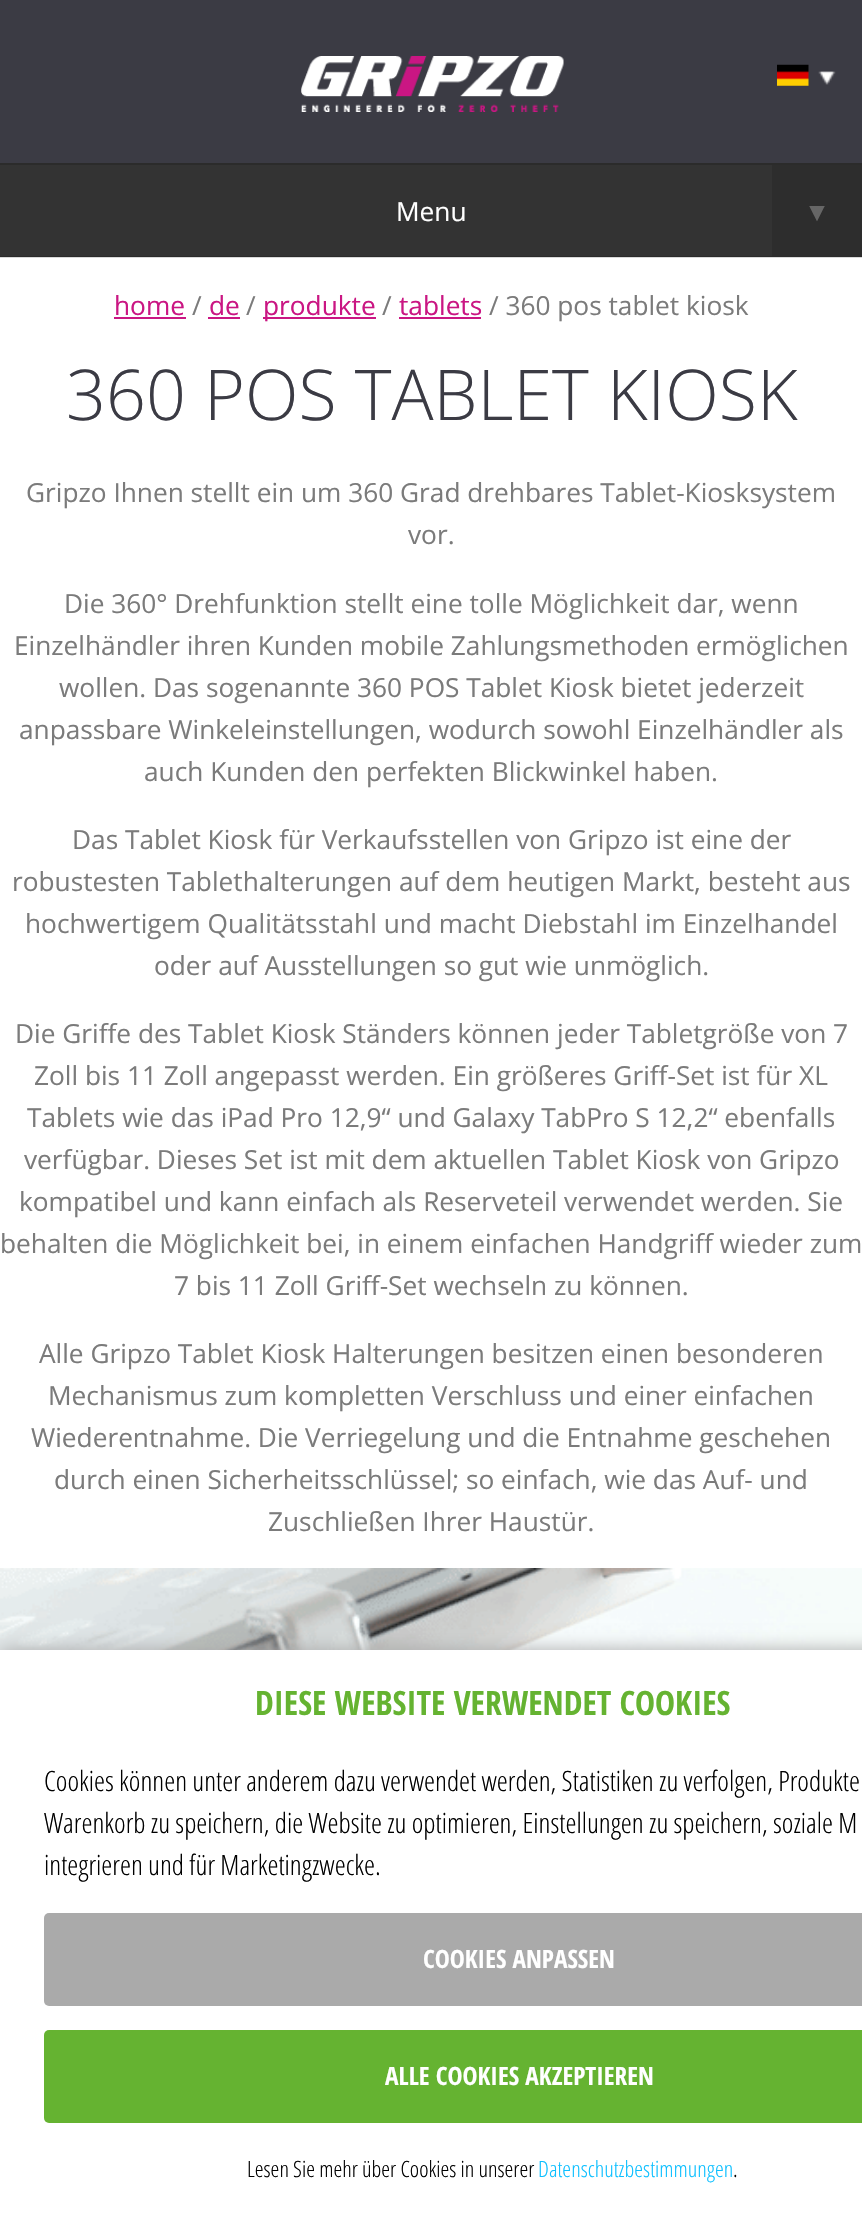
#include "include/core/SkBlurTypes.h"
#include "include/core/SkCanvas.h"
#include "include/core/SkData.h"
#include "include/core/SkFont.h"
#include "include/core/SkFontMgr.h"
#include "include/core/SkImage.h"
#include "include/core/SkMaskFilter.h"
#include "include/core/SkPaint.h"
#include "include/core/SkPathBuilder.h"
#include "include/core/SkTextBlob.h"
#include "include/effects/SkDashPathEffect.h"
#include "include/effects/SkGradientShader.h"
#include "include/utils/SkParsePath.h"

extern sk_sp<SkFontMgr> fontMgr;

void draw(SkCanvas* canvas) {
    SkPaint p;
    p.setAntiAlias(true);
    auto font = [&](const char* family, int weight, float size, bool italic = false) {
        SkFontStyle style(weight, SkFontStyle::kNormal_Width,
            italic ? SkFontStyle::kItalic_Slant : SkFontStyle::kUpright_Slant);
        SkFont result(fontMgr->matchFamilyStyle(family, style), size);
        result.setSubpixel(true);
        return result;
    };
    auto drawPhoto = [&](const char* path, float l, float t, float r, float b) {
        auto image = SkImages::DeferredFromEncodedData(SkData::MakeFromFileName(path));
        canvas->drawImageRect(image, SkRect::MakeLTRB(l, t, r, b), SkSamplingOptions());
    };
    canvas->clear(0xFFFFFFFF);
    p.setColor(0xFFD9D9D9);
    canvas->drawRect(SkRect::MakeLTRB(0, 257, 862, 258), p);
    p.setColor(0xFF3B3B44);
    canvas->drawRect(SkRect::MakeLTRB(0, 0, 862, 163), p);
    drawPhoto("media/1.png", 301, 56, 564, 112);
    drawPhoto("media/2.png", 818, 71, 836, 85);
    drawPhoto("media/3.png", 777, 64, 809, 86);
    {
        const struct { float l, t, r, b; SkColor color; } items[] = {
            {0, 165, 772, 256, 0xFF333333},
            {0, 256, 862, 257, 0xFF2B2B2B},
            {0, 163, 862, 165, 0xFF2B2B2B},
        };
        for (auto [l, t, r, b, color] : items) {
            p.setColor(color);
            canvas->drawRect(SkRect::MakeLTRB(l, t, r, b), p);
        }
    }
    auto font1 = font("Open Sans", 400, 26.25f);
    p.setColor(0xFFFFFFFF);
    canvas->drawString("Menu", 396, 221, font1, p);
    p.setColor(0xFF2D2D2D);
    canvas->drawRect(SkRect::MakeLTRB(772, 165, 862, 256), p);
    auto font2 = font("Liberation Sans", 400, 26.25f, true);
    p.setColor(0xFF666666);
    canvas->drawString("▼", 804, 221, font2, p);
    p.setColor(0xFFCA1683);
    canvas->drawString("home", 114, 315, font1, p);
    canvas->drawRect(SkRect::MakeLTRB(114, 317, 186, 319), p);
    p.setColor(0xFF7B7B7B);
    canvas->drawString("/", 192, 315, font1, p);
    p.setColor(0xFFCA1683);
    canvas->drawString("de", 209, 315, font1, p);
    canvas->drawRect(SkRect::MakeLTRB(208, 317, 240, 319), p);
    p.setColor(0xFF7B7B7B);
    canvas->drawString("/", 246, 315, font1, p);
    p.setColor(0xFFCA1683);
    canvas->drawRect(SkRect::MakeLTRB(263, 317, 376, 319), p);
    canvas->drawString("produkte", 263, 315, font1, p);
    p.setColor(0xFF7B7B7B);
    canvas->drawString("/", 382, 315, font1, p);
    p.setColor(0xFFCA1683);
    canvas->drawString("tablets", 399, 315, font1, p);
    canvas->drawRect(SkRect::MakeLTRB(399, 317, 481, 319), p);
    p.setColor(0xFF7B7B7B);
    canvas->drawString("/ 360 pos tablet kiosk", 489, 315, font1, p);
    auto font3 = font("Open Sans", 300, 70);
    p.setColor(0xFF3B3B44);
    canvas->drawString("360 POS TABLET KIOSK", 66, 420, font3, p);
    p.setColor(0xFF7B7B7B);
    {
        const struct { const char* s; float x, y; } items[] = {
            {"Gripzo Ihnen stellt ein um 360 Grad drehbares Tablet-Kiosksystem", 26, 502},
            {"vor.", 408, 544},
            {"Die 360° Drehfunktion stellt eine tolle Möglichkeit dar, wenn", 64, 613},
            {"Einzelhändler ihren Kunden mobile Zahlungsmethoden ermöglichen", 14, 655},
            {"wollen. Das sogenannte 360 POS Tablet Kiosk bietet jederzeit", 59, 697},
            {"anpassbare Winkeleinstellungen, wodurch sowohl Einzelhändler als", 19, 739},
            {"auch Kunden den perfekten Blickwinkel haben.", 144, 781},
            {"Das Tablet Kiosk für Verkaufsstellen von Gripzo ist eine der", 72, 849},
            {"robustesten Tablethalterungen auf dem heutigen Markt, besteht aus", 12, 891},
            {"hochwertigem Qualitätsstahl und macht Diebstahl im Einzelhandel", 25, 933},
            {"oder auf Ausstellungen so gut wie unmöglich.", 154, 975},
            {"Die Griffe des Tablet Kiosk Ständers können jeder Tabletgröße von 7", 15, 1043},
            {"Zoll bis 11 Zoll angepasst werden. Ein größeres Griff-Set ist für XL", 34, 1085},
            {"Tablets wie das iPad Pro 12,9“ und Galaxy TabPro S 12,2“ ebenfalls", 27, 1127},
            {"verfügbar. Dieses Set ist mit dem aktuellen Tablet Kiosk von Gripzo", 24, 1169},
            {"kompatibel und kann einfach als Reserveteil verwendet werden. Sie", 19, 1211},
            {"behalten die Möglichkeit bei, in einem einfachen Handgriff wieder zum", 0, 1253},
            {"7 bis 11 Zoll Griff-Set wechseln zu können.", 174, 1295},
            {"Alle Gripzo Tablet Kiosk Halterungen besitzen einen besonderen", 39, 1363},
            {"Mechanismus zum kompletten Verschluss und einer einfachen", 48, 1405},
            {"Wiederentnahme. Die Verriegelung und die Entnahme geschehen", 31, 1447},
            {"durch einen Sicherheitsschlüssel; so einfach, wie das Auf- und", 54, 1489},
            {"Zuschließen Ihrer Haustür.", 268, 1531},
        };
        for (auto [s, x, y] : items) {
            canvas->drawString(s, x, y, font1, p);
        }
    }
    drawPhoto("media/4.png", 0, 1568, 862, 1650);
    p.setColor(0xFFAAAAAA);
    p.setMaskFilter(SkMaskFilter::MakeBlur(kNormal_SkBlurStyle, 9));
    canvas->drawRect(SkRect::MakeLTRB(0, 1650, 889, 2217), p);
    p.setMaskFilter(nullptr);
    p.setColor(0xFFFFFFFF);
    canvas->drawRect(SkRect::MakeLTRB(0, 1650, 862, 2217), p);
    auto font4 = font("Open Sans Condensed", 700, 33.6f);
    p.setColor(0xFF65B331);
    canvas->drawString("DIESE WEBSITE VERWENDET COOKIES", 255, 1715, font4, p);
    auto font5 = font("Open Sans Condensed", 300, 28);
    p.setColor(0xFF000000);
    {
        const struct { const char* s; float x, y; } items[] = {
            {"Cookies können unter anderem dazu verwendet werden, Statistiken zu verfolgen, Produkte", 44, 1791},
            {"Warenkorb zu speichern, die Website zu optimieren, Einstellungen zu speichern, soziale M", 44, 1833},
            {"integrieren und für Marketingzwecke.", 44, 1875},
        };
        for (auto [s, x, y] : items) {
            canvas->drawString(s, x, y, font5, p);
        }
    }
    p.setColor(0xFFAAAAAA);
    canvas->drawRoundRect(SkRect::MakeLTRB(44, 1913, 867, 2006), 5, 5, p);
    auto font6 = font("Open Sans Condensed", 700, 25.25f);
    p.setColor(0xFFFFFFFF);
    canvas->drawString("COOKIES ANPASSEN", 423, 1968, font6, p);
    p.setColor(0xFF65B331);
    canvas->drawRoundRect(SkRect::MakeLTRB(44, 2030, 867, 2123), 5, 5, p);
    p.setColor(0xFFFFFFFF);
    canvas->drawString("ALLE COOKIES AKZEPTIEREN", 385, 2085, font6, p);
    auto font7 = font("Open Sans Condensed", 300, 22.4f);
    p.setColor(0xFF000000);
    canvas->drawString("Lesen Sie mehr über Cookies in unserer", 247, 2177, font7, p);
    p.setColor(0xFF0BBFFF);
    canvas->drawString("Datenschutzbestimmungen", 538, 2177, font7, p);
    p.setColor(0xFF000000);
    canvas->drawString(".", 733, 2177, font7, p);
}
